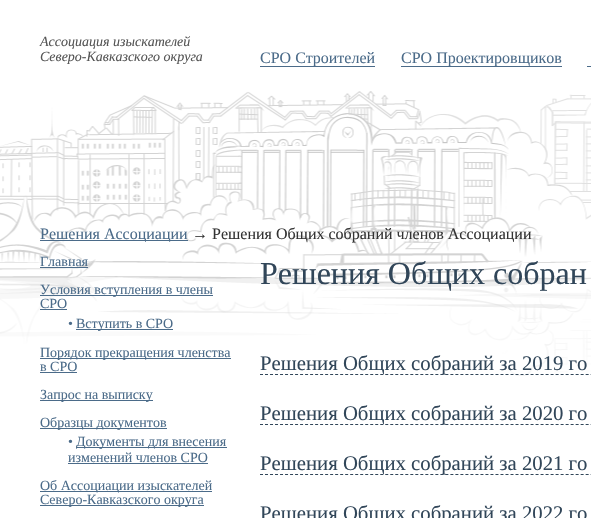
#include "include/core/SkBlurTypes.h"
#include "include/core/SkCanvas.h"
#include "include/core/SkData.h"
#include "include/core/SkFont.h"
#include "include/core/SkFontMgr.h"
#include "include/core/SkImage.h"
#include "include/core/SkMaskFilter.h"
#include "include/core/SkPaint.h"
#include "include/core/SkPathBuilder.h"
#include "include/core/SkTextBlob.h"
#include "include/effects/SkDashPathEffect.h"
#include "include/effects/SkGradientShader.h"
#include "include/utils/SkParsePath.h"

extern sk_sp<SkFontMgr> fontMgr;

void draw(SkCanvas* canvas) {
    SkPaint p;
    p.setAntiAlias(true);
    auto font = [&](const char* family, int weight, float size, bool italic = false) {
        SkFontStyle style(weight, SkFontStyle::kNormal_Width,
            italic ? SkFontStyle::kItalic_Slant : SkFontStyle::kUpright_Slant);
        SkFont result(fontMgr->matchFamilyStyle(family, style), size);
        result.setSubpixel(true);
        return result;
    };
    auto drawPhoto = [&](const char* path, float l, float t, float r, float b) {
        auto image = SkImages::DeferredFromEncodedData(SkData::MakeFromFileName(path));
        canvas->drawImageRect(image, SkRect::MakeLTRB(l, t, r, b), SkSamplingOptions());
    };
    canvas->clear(0xFFFFFFFF);
    drawPhoto("media/1.png", 0, 91, 591, 376);
    auto font1 = font("Liberation Serif", 400, 14, true);
    p.setColor(0xFF555555);
    canvas->drawString("Ассоциация изыскателей", 40, 46, font1, p);
    canvas->drawString("Северо-Кавказского округа", 40, 61, font1, p);
    p.setColor(0xFF4B6B89);
    canvas->drawRect(SkRect::MakeLTRB(260, 66, 375, 67), p);
    auto font2 = font("Liberation Serif", 400, 16);
    canvas->drawString("СРО Строителей", 260, 63, font2, p);
    canvas->drawRect(SkRect::MakeLTRB(401, 66, 562, 67), p);
    canvas->drawString("СРО Проектировщиков", 401, 63, font2, p);
    canvas->drawRect(SkRect::MakeLTRB(587, 66, 591, 67), p);
    canvas->drawRect(SkRect::MakeLTRB(40, 240, 188, 241), p);
    canvas->drawString("Решения Ассоциации", 40, 239, font2, p);
    p.setColor(0xFF333333);
    canvas->drawString("→ Решения Общих собраний членов Ассоциации", 192, 239, font2, p);
    auto font3 = font("Liberation Serif", 400, 14);
    p.setColor(0xFF4B6B89);
    canvas->drawString("Главная", 40, 266, font3, p);
    canvas->drawRect(SkRect::MakeLTRB(40, 267, 88, 268), p);
    canvas->drawRect(SkRect::MakeLTRB(40, 295, 213, 296), p);
    canvas->drawString("Условия вступления в члены", 40, 294, font3, p);
    canvas->drawString("СРО", 40, 308, font3, p);
    canvas->drawRect(SkRect::MakeLTRB(40, 309, 67, 310), p);
    canvas->drawString("•", 68, 328, font3, p);
    canvas->drawRect(SkRect::MakeLTRB(76, 329, 173, 330), p);
    canvas->drawString("Вступить в СРО", 76, 328, font3, p);
    canvas->drawRect(SkRect::MakeLTRB(40, 358, 231, 359), p);
    canvas->drawString("Порядок прекращения членства", 40, 357, font3, p);
    canvas->drawString("в СРО", 40, 371, font3, p);
    canvas->drawRect(SkRect::MakeLTRB(40, 372, 77, 373), p);
    canvas->drawRect(SkRect::MakeLTRB(40, 400, 153, 401), p);
    canvas->drawString("Запрос на выписку", 40, 399, font3, p);
    canvas->drawRect(SkRect::MakeLTRB(40, 428, 167, 429), p);
    canvas->drawString("Образцы документов", 40, 427, font3, p);
    canvas->drawString("•", 68, 446, font3, p);
    canvas->drawRect(SkRect::MakeLTRB(76, 447, 227, 448), p);
    canvas->drawString("Документы для внесения", 76, 446, font3, p);
    canvas->drawString("изменений членов СРО", 68, 462, font3, p);
    canvas->drawRect(SkRect::MakeLTRB(68, 463, 208, 464), p);
    canvas->drawRect(SkRect::MakeLTRB(40, 491, 212, 492), p);
    canvas->drawString("Об Ассоциации изыскателей", 40, 490, font3, p);
    canvas->drawRect(SkRect::MakeLTRB(40, 505, 204, 506), p);
    canvas->drawString("Северо-Кавказского округа", 40, 504, font3, p);
    auto font4 = font("Liberation Serif", 400, 32);
    p.setColor(0xFF314659);
    canvas->drawString("Решения Общих собран", 260, 284, font4, p);
    p.setStyle(SkPaint::kStroke_Style);
    p.setStrokeWidth(1);
    p.setPathEffect(SkDashPathEffect::Make({{3, 2.01f}}, 0));
    canvas->drawPath(SkPathBuilder().moveTo(260, 374.5f).lineTo(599, 374.5f).detach(), p);
    p.setPathEffect(nullptr);
    auto font5 = font("Liberation Serif", 400, 20.75f);
    p.setStyle(SkPaint::kFill_Style);
    canvas->drawString("Решения Общих собраний за 2019 го", 260, 370, font5, p);
    p.setStyle(SkPaint::kStroke_Style);
    p.setPathEffect(SkDashPathEffect::Make({{3, 2.01f}}, 0));
    canvas->drawPath(SkPathBuilder().moveTo(260, 424.5f).lineTo(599, 424.5f).detach(), p);
    p.setPathEffect(nullptr);
    p.setStyle(SkPaint::kFill_Style);
    canvas->drawString("Решения Общих собраний за 2020 го", 260, 420, font5, p);
    p.setStyle(SkPaint::kStroke_Style);
    p.setPathEffect(SkDashPathEffect::Make({{3, 2.01f}}, 0));
    canvas->drawPath(SkPathBuilder().moveTo(260, 474.5f).lineTo(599, 474.5f).detach(), p);
    p.setPathEffect(nullptr);
    p.setStyle(SkPaint::kFill_Style);
    canvas->drawString("Решения Общих собраний за 2021 го", 260, 470, font5, p);
    canvas->drawString("Решения Общих собраний за 2022 го", 260, 520, font5, p);
}
